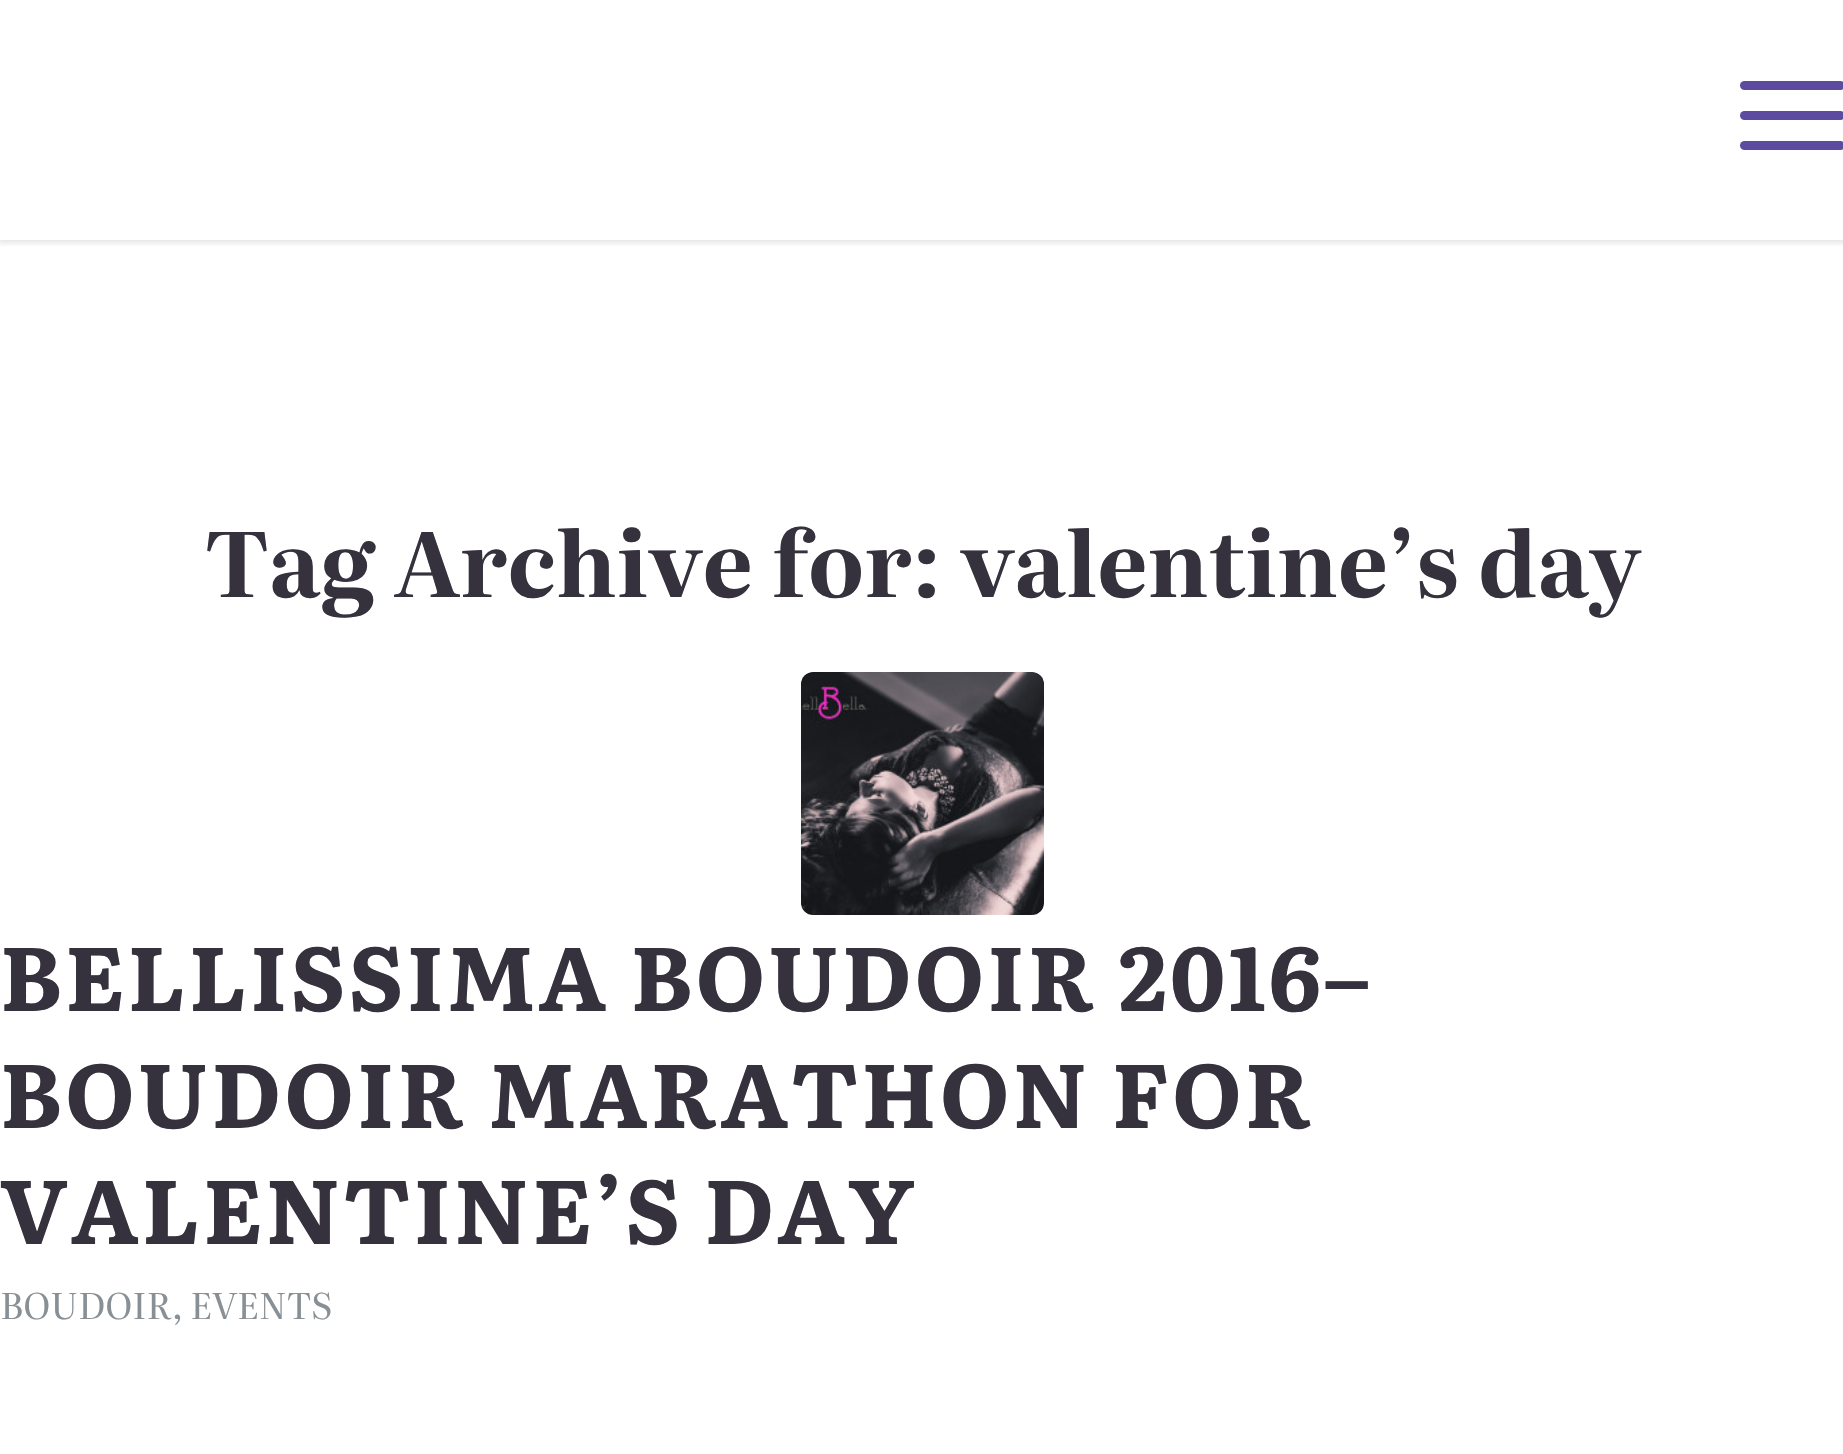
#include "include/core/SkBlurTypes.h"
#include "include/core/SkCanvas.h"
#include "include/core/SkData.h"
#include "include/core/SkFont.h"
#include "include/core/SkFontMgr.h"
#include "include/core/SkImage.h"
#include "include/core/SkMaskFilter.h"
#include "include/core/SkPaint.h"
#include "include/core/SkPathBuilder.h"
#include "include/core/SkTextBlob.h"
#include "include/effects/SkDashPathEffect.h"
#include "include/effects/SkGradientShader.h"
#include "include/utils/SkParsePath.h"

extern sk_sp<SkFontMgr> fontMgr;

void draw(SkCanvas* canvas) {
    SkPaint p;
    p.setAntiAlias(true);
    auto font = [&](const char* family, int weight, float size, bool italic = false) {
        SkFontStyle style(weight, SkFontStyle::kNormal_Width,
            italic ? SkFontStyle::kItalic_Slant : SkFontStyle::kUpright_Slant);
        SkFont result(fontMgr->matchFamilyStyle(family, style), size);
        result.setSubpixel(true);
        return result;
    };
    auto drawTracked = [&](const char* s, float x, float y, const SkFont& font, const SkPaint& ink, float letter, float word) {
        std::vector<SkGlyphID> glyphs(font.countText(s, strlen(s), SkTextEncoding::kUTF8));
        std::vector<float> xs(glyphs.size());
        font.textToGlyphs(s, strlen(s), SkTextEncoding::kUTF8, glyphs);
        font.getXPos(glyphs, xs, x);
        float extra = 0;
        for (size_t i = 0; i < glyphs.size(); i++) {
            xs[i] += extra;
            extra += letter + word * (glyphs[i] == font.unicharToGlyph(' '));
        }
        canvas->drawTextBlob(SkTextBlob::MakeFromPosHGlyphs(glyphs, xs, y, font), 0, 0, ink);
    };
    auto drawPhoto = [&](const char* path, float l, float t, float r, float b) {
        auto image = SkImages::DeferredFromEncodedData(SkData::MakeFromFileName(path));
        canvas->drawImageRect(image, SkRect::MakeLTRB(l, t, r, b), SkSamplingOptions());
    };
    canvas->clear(0xFFFFFFFF);
    canvas->save();
    canvas->clipRect(SkRect::MakeLTRB(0, 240, 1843, 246));
    p.setColor(0x1A000000);
    p.setMaskFilter(SkMaskFilter::MakeBlur(kNormal_SkBlurStyle, 3));
    canvas->drawRect(SkRect::MakeLTRB(-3, -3, 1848, 243), p);
    p.setMaskFilter(nullptr);
    canvas->restore();
    p.setColor(0xFF5D4B9F);
    canvas->drawRoundRect(SkRect::MakeLTRB(1740, 111, 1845, 120), 4.5f, 4.5f, p);
    canvas->drawRoundRect(SkRect::MakeLTRB(1740, 81, 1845, 90), 4.5f, 4.5f, p);
    canvas->drawRoundRect(SkRect::MakeLTRB(1740, 141, 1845, 150), 4.5f, 4.5f, p);
    auto font1 = font("Literata", 700, 90);
    p.setColor(0xFF35313D);
    canvas->drawString("Tag Archive for: valentine’s day", 205, 597, font1, p);
    p.setColor(0xFF889095);
    canvas->drawRoundRect(SkRect::MakeLTRB(801, 672, 1044, 915), 12, 12, p);
    drawPhoto("media/1.png", 801, 672, 1044, 915);
    auto font2 = font("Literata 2", 700, 89.75f);
    p.setColor(0xFF35313D);
    {
        const struct { const char* s; float x, y; } items[] = {
            {"BELLISSIMA BOUDOIR 2016–", 0, 1011},
            {"BOUDOIR MARATHON FOR", 0, 1128},
            {"VALENTINE’S DAY", 0, 1244},
        };
        for (auto [s, x, y] : items) {
            drawTracked(s, x, y, font2, p, 3, 0);
        }
    }
    auto font3 = font("Literata", 400, 35.9f);
    p.setColor(0xFF889095);
    canvas->drawString("BOUDOIR, EVENTS", 0, 1319, font3, p);
}
